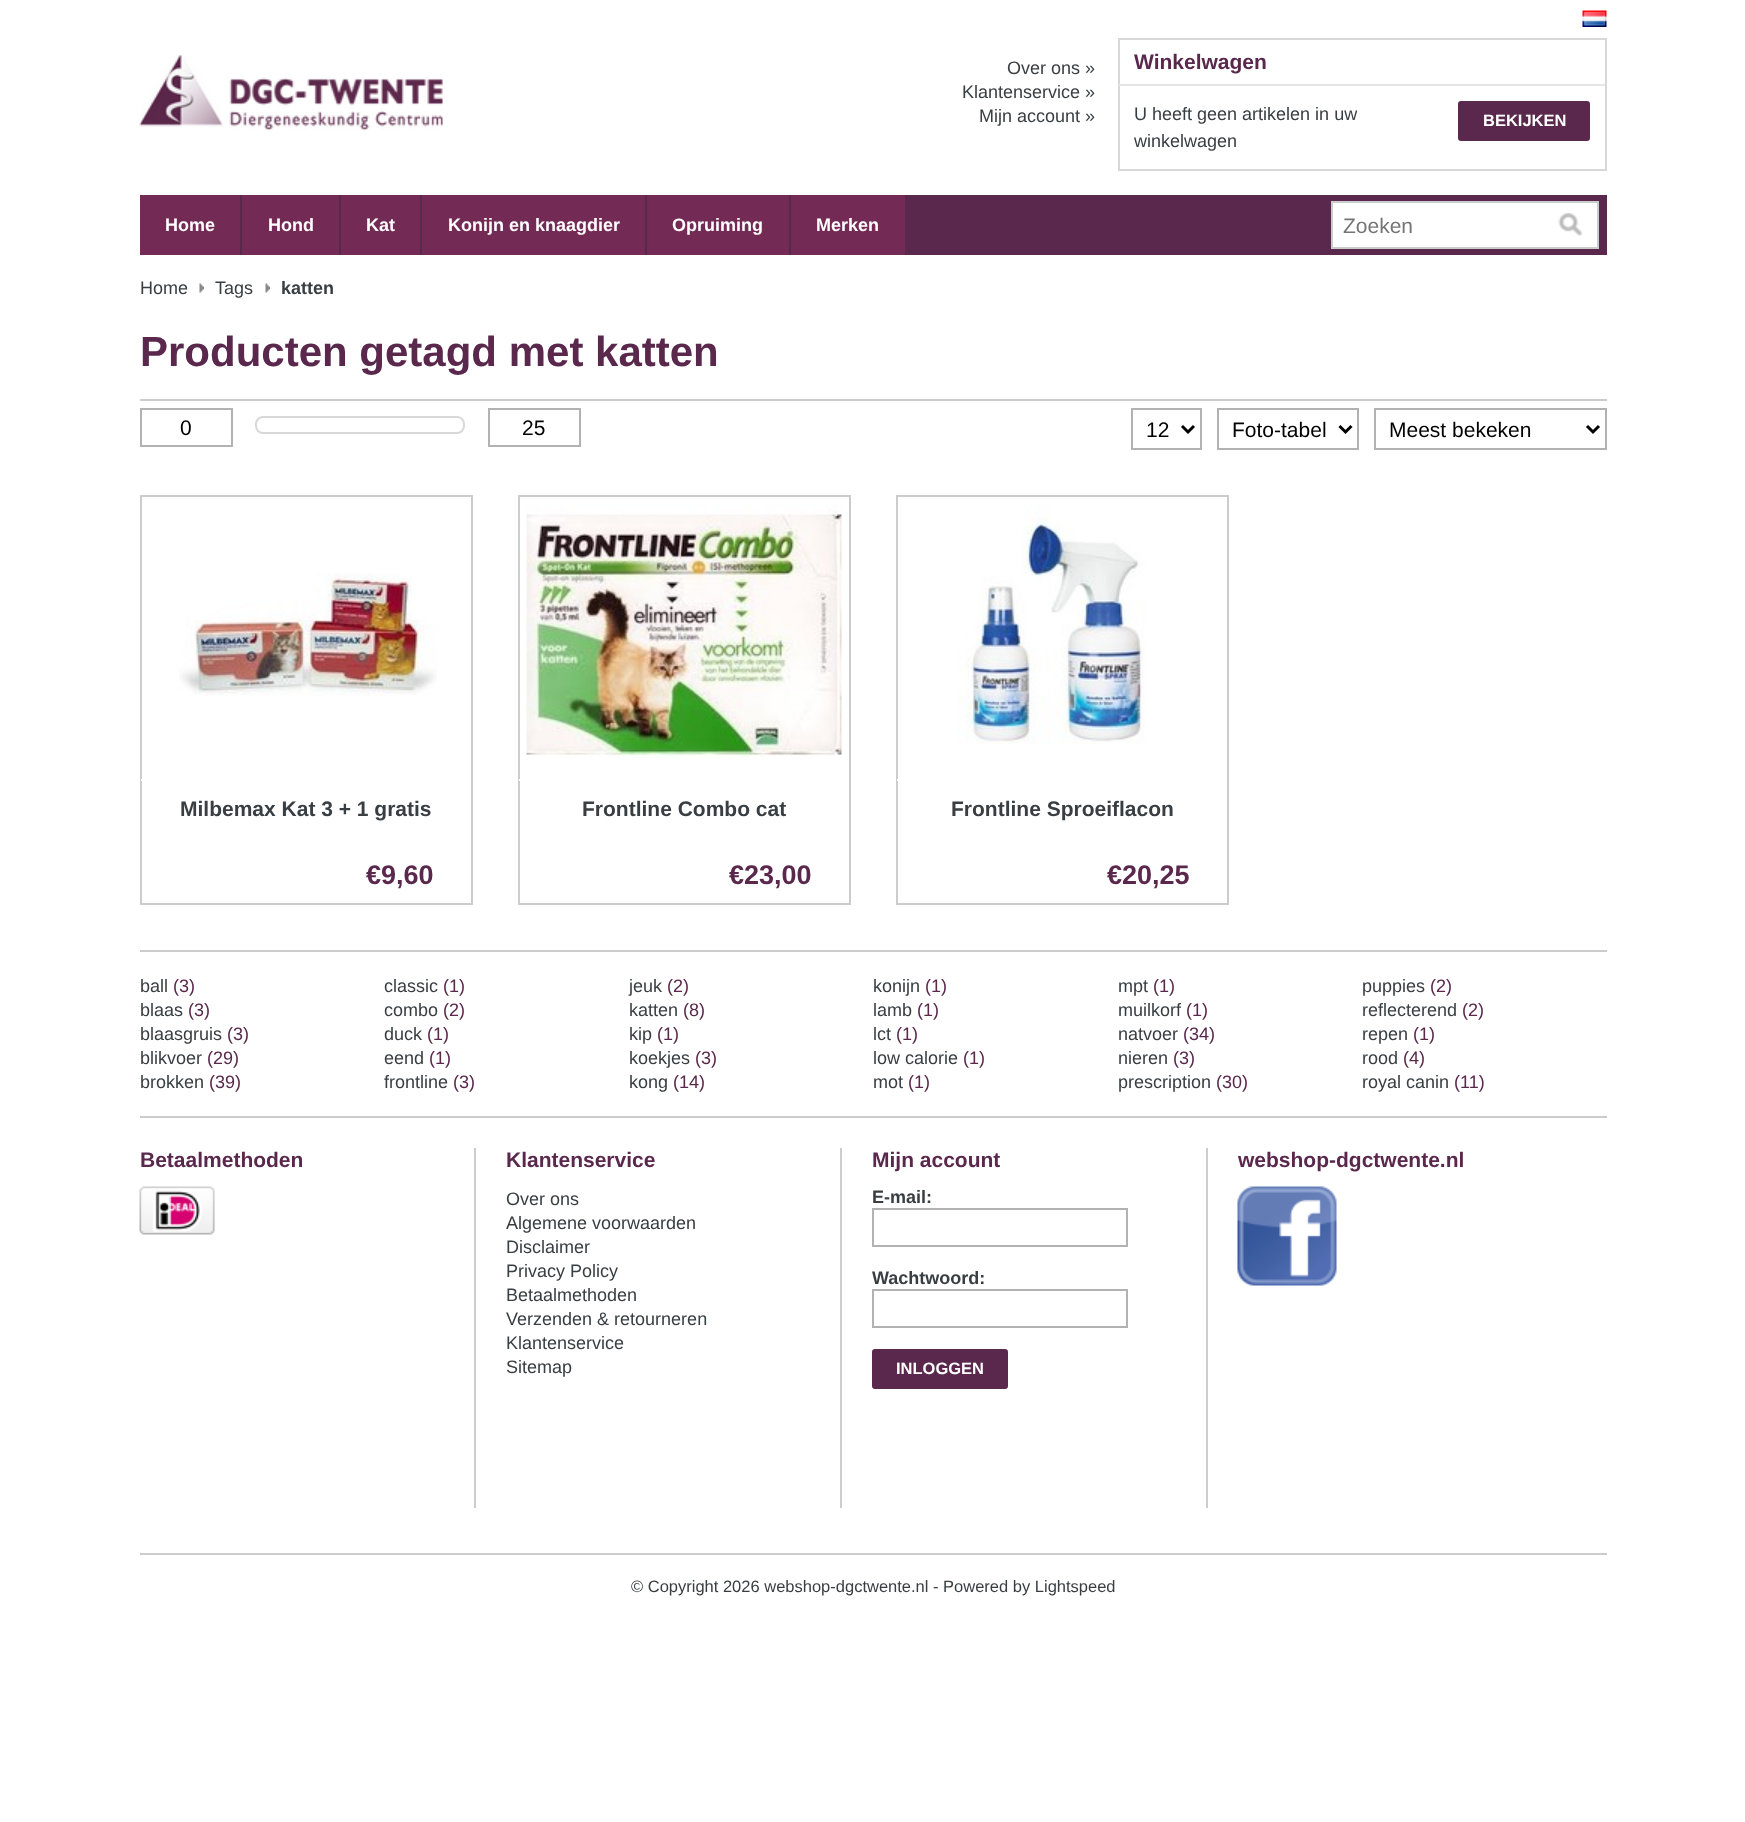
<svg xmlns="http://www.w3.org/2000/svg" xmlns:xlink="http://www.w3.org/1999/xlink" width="1745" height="1822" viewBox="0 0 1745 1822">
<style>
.cls-1{font:18px Liberation Sans;fill:#383e42}
.cls-2{font:bold 21px Liberation Sans;fill:#5a284c}
.cls-3{font:bold 16.5px Liberation Sans;fill:#ffffff}
.cls-4{font:bold 18px Liberation Sans;fill:#ffffff}
.cls-5{font:21px Liberation Sans;fill:#757575}
.cls-6{font:bold 18px Liberation Sans;fill:#383e42}
.cls-7{font:bold 42px Liberation Sans;fill:#5a284c}
.cls-8{font:21px Liberation Sans;fill:#000000}
.cls-9{font:bold 21px Liberation Sans;fill:#383e42}
.cls-10{font:bold 27px Liberation Sans;fill:#5a284c}
.cls-11{font:18px Liberation Sans;fill:#5a284c}
.cls-12{font:16.5px Liberation Sans;fill:#383e42}
</style>
<rect width="100%" height="100%" fill="#ffffff"/>
<image xlink:href="image0.png" x="139" y="55" width="304" height="76"/>
<image xlink:href="image1.png" x="1582" y="10" width="25" height="17"/>
<rect fill="none" stroke="#d8d8d8" stroke-width="2" x="1119" y="39" width="487" height="131"/>
<rect fill="#e6e6e6" x="1119" y="84" width="486" height="2"/>
<rect fill="#5a284c" stroke="#5a284c" stroke-width="2" x="1459" y="102" width="130" height="38" rx="2"/>
<rect fill="#5a284c" x="905" y="195" width="702" height="60"/>
<rect fill="#732b55" x="140" y="195" width="100" height="60"/>
<rect fill="#732b55" x="242" y="195" width="97" height="60"/>
<rect fill="#5a284c" x="240" y="195" width="2" height="60"/>
<rect fill="#732b55" x="341" y="195" width="79" height="60"/>
<rect fill="#5a284c" x="339" y="195" width="2" height="60"/>
<rect fill="#732b55" x="422" y="195" width="223" height="60"/>
<rect fill="#5a284c" x="420" y="195" width="2" height="60"/>
<rect fill="#732b55" x="647" y="195" width="142" height="60"/>
<rect fill="#5a284c" x="645" y="195" width="2" height="60"/>
<rect fill="#732b55" x="791" y="195" width="114" height="60"/>
<rect fill="#5a284c" x="789" y="195" width="2" height="60"/>
<rect fill="#ffffff" stroke="#cccccc" stroke-width="2" x="1332" y="202" width="266" height="46"/>
<image xlink:href="image2.png" x="1558" y="213" width="25" height="23"/>
<image xlink:href="image3.png" x="199" y="283" width="5" height="10"/>
<image xlink:href="image3.png" x="265" y="283" width="5" height="10"/>
<rect fill="#cccccc" x="140" y="399" width="1467" height="2"/>
<rect fill="none" stroke="#b2b2b2" stroke-width="2" x="141" y="409" width="91" height="37"/>
<rect fill="none" stroke="#d8d8d8" stroke-width="2" x="256" y="417" width="208" height="16" rx="7"/>
<rect fill="none" stroke="#b2b2b2" stroke-width="2" x="489" y="409" width="91" height="37"/>
<rect fill="none" stroke="#b2b2b2" stroke-width="2" x="1132" y="409" width="69" height="40"/>
<path fill="none" stroke="#000000" stroke-width="3" d="M1182 426L1188 432L1194 426"/>
<rect fill="none" stroke="#b2b2b2" stroke-width="2" x="1218" y="409" width="140" height="40"/>
<path fill="none" stroke="#000000" stroke-width="3" d="M1339.5 426L1345.5 432L1351.5 426"/>
<rect fill="none" stroke="#b2b2b2" stroke-width="2" x="1375" y="409" width="231" height="40"/>
<path fill="none" stroke="#000000" stroke-width="3" d="M1587 426L1593 432L1599 426"/>
<rect fill="none" stroke="#cccccc" stroke-width="2" x="141" y="496" width="331" height="408"/>
<image xlink:href="image4.png" x="179" y="573" width="258" height="123"/>
<rect fill="#ffffff" x="141" y="779" width="1" height="2"/>
<rect fill="none" stroke="#cccccc" stroke-width="2" x="519" y="496" width="331" height="408"/>
<image xlink:href="image5.png" x="526" y="504" width="316" height="254"/>
<rect fill="#ffffff" x="519" y="779" width="1" height="2"/>
<rect fill="none" stroke="#cccccc" stroke-width="2" x="897" y="496" width="331" height="408"/>
<image xlink:href="image6.png" x="957" y="504" width="188" height="240"/>
<rect fill="#ffffff" x="897" y="779" width="1" height="2"/>
<rect fill="#cccccc" x="140" y="950" width="1467" height="2"/>
<rect fill="#cccccc" x="140" y="1116" width="1467" height="2"/>
<image xlink:href="image7.png" x="139" y="1186" width="76" height="49"/>
<rect fill="#cccccc" x="474" y="1148" width="2" height="360"/>
<rect fill="#cccccc" x="840" y="1148" width="2" height="360"/>
<rect fill="none" stroke="#b2b2b2" stroke-width="2" x="873" y="1209" width="254" height="37"/>
<rect fill="none" stroke="#b2b2b2" stroke-width="2" x="873" y="1290" width="254" height="37"/>
<rect fill="#5a284c" stroke="#5a284c" stroke-width="2" x="873" y="1350" width="134" height="38" rx="2"/>
<rect fill="#cccccc" x="1206" y="1148" width="2" height="360"/>
<image xlink:href="image8.png" x="1237" y="1186" width="100" height="100"/>
<rect fill="#cccccc" x="140" y="1553" width="1467" height="2"/>
<text class="cls-1" x="1007" y="74">Over ons »</text>
<text class="cls-1" x="962" y="98">Klantenservice »</text>
<text class="cls-1" x="979" y="122">Mijn account »</text>
<text class="cls-2" x="1134" y="69">Winkelwagen</text>
<text class="cls-1" x="1134" y="120">U heeft geen artikelen in uw</text>
<text class="cls-3" x="1483" y="126">BEKIJKEN</text>
<text class="cls-1" x="1134" y="147">winkelwagen</text>
<text class="cls-4" x="165" y="231">Home</text>
<text class="cls-4" x="268" y="231">Hond</text>
<text class="cls-4" x="366" y="231">Kat</text>
<text class="cls-4" x="448" y="231">Konijn en knaagdier</text>
<text class="cls-4" x="672" y="231">Opruiming</text>
<text class="cls-4" x="816" y="231">Merken</text>
<text class="cls-5" x="1343" y="233">Zoeken</text>
<text class="cls-1" x="140" y="294">Home</text>
<text class="cls-1" x="215" y="294">Tags</text>
<text class="cls-6" x="281" y="294">katten</text>
<text class="cls-7" x="140" y="366">Producten getagd met katten</text>
<text class="cls-8" x="180" y="435">0</text>
<text class="cls-8" x="522" y="435">25</text>
<text class="cls-8" x="1146" y="437">12</text>
<text class="cls-8" x="1232" y="437">Foto-tabel</text>
<text class="cls-8" x="1389" y="437">Meest bekeken</text>
<text class="cls-9" x="180" y="816">Milbemax Kat 3 + 1 gratis</text>
<text class="cls-10" x="366" y="884">€9,60</text>
<text class="cls-9" x="582" y="816">Frontline Combo cat</text>
<text class="cls-10" x="729" y="884">€23,00</text>
<text class="cls-9" x="951" y="816">Frontline Sproeiflacon</text>
<text class="cls-10" x="1107" y="884">€20,25</text>
<text class="cls-1" x="140" y="992">ball</text>
<text class="cls-11" x="173" y="992">(3)</text>
<text class="cls-1" x="140" y="1016">blaas</text>
<text class="cls-11" x="188" y="1016">(3)</text>
<text class="cls-1" x="140" y="1040">blaasgruis</text>
<text class="cls-11" x="227" y="1040">(3)</text>
<text class="cls-1" x="140" y="1064">blikvoer</text>
<text class="cls-11" x="207" y="1064">(29)</text>
<text class="cls-1" x="140" y="1088">brokken</text>
<text class="cls-11" x="209" y="1088">(39)</text>
<text class="cls-1" x="384" y="992">classic</text>
<text class="cls-11" x="443" y="992">(1)</text>
<text class="cls-1" x="384" y="1016">combo</text>
<text class="cls-11" x="443" y="1016">(2)</text>
<text class="cls-1" x="384" y="1040">duck</text>
<text class="cls-11" x="427" y="1040">(1)</text>
<text class="cls-1" x="384" y="1064">eend</text>
<text class="cls-11" x="429" y="1064">(1)</text>
<text class="cls-1" x="384" y="1088">frontline</text>
<text class="cls-11" x="453" y="1088">(3)</text>
<text class="cls-1" x="629" y="992">jeuk</text>
<text class="cls-11" x="667" y="992">(2)</text>
<text class="cls-1" x="629" y="1016">katten</text>
<text class="cls-11" x="683" y="1016">(8)</text>
<text class="cls-1" x="629" y="1040">kip</text>
<text class="cls-11" x="657" y="1040">(1)</text>
<text class="cls-1" x="629" y="1064">koekjes</text>
<text class="cls-11" x="695" y="1064">(3)</text>
<text class="cls-1" x="629" y="1088">kong</text>
<text class="cls-11" x="673" y="1088">(14)</text>
<text class="cls-1" x="873" y="992">konijn</text>
<text class="cls-11" x="925" y="992">(1)</text>
<text class="cls-1" x="873" y="1016">lamb</text>
<text class="cls-11" x="917" y="1016">(1)</text>
<text class="cls-1" x="873" y="1040">lct</text>
<text class="cls-11" x="896" y="1040">(1)</text>
<text class="cls-1" x="873" y="1064">low calorie</text>
<text class="cls-11" x="963" y="1064">(1)</text>
<text class="cls-1" x="873" y="1088">mot</text>
<text class="cls-11" x="908" y="1088">(1)</text>
<text class="cls-1" x="1118" y="992">mpt</text>
<text class="cls-11" x="1153" y="992">(1)</text>
<text class="cls-1" x="1118" y="1016">muilkorf</text>
<text class="cls-11" x="1186" y="1016">(1)</text>
<text class="cls-1" x="1118" y="1040">natvoer</text>
<text class="cls-11" x="1183" y="1040">(34)</text>
<text class="cls-1" x="1118" y="1064">nieren</text>
<text class="cls-11" x="1173" y="1064">(3)</text>
<text class="cls-1" x="1118" y="1088">prescription</text>
<text class="cls-11" x="1216" y="1088">(30)</text>
<text class="cls-1" x="1362" y="992">puppies</text>
<text class="cls-11" x="1430" y="992">(2)</text>
<text class="cls-1" x="1362" y="1016">reflecterend</text>
<text class="cls-11" x="1462" y="1016">(2)</text>
<text class="cls-1" x="1362" y="1040">repen</text>
<text class="cls-11" x="1413" y="1040">(1)</text>
<text class="cls-1" x="1362" y="1064">rood</text>
<text class="cls-11" x="1403" y="1064">(4)</text>
<text class="cls-1" x="1362" y="1088">royal canin</text>
<text class="cls-11" x="1454" y="1088">(11)</text>
<text class="cls-2" x="140" y="1167">Betaalmethoden</text>
<text class="cls-2" x="506" y="1167">Klantenservice</text>
<text class="cls-1"><tspan x="506" y="1205">Over ons</tspan><tspan x="506" y="1229">Algemene voorwaarden</tspan><tspan x="506" y="1253">Disclaimer</tspan><tspan x="506" y="1277">Privacy Policy</tspan><tspan x="506" y="1301">Betaalmethoden</tspan><tspan x="506" y="1325">Verzenden &amp; retourneren</tspan><tspan x="506" y="1349">Klantenservice</tspan><tspan x="506" y="1373">Sitemap</tspan></text>
<text class="cls-2" x="872" y="1167">Mijn account</text>
<text class="cls-6" x="872" y="1203">E-mail:</text>
<text class="cls-6" x="872" y="1284">Wachtwoord:</text>
<text class="cls-3" x="896" y="1374">INLOGGEN</text>
<text class="cls-2" x="1238" y="1167">webshop-dgctwente.nl</text>
<text class="cls-12" x="631" y="1592">© Copyright 2026 webshop-dgctwente.nl - Powered by Lightspeed</text>
</svg>
